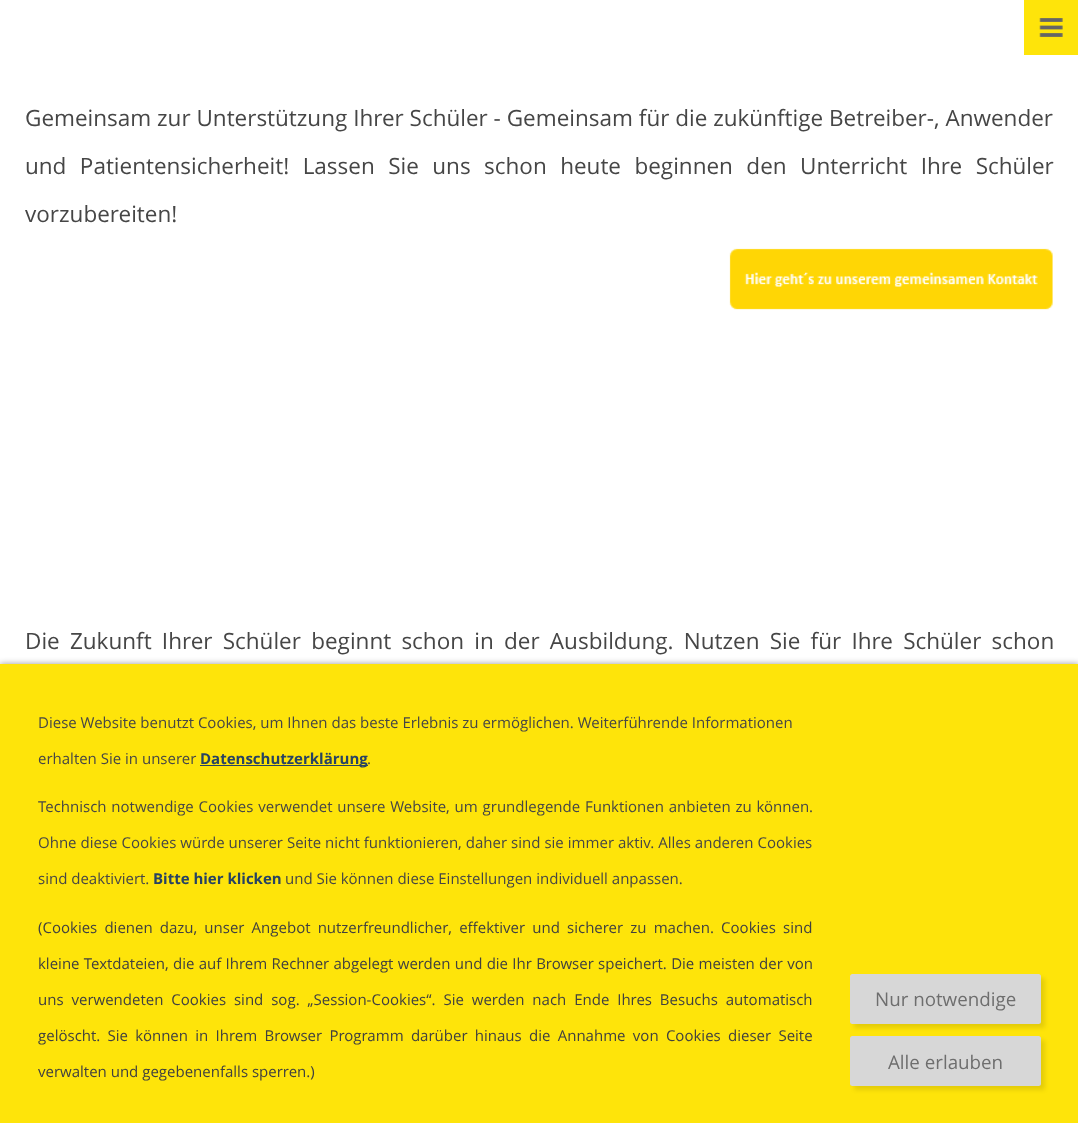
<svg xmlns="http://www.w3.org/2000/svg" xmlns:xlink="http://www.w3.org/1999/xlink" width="1078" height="1123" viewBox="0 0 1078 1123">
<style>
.cls-1{font:22.5px Open Sans;fill:#464646}
.cls-2{font:15px Open Sans;fill:#464646}
.cls-3{font:bold 15px Open Sans;fill:#274263}
.cls-4{font:15px Open Sans;fill:#404040}
.cls-5{font:18.75px Open Sans;fill:#6e6e6e}
</style>
<rect width="100%" height="100%" fill="#ffffff"/>
<rect fill="#fee40a" x="1024" y="0" width="54" height="55"/>
<image xlink:href="image0.png" x="1039" y="18" width="24" height="19"/>
<image xlink:href="image1.png" x="729" y="248" width="324" height="62"/>
<rect fill="#000000" fill-opacity="0.4" filter="blur(3px)" x="0" y="664" width="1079" height="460"/>
<rect fill="#fee40a" x="0" y="664" width="1078" height="459"/>
<rect fill="#274263" x="200" y="765" width="168" height="1"/>
<rect fill="#000000" fill-opacity="0.1" filter="blur(2px)" x="854" y="978" width="191" height="50" rx="2.5"/>
<rect fill="#d7d7d7" x="850" y="974" width="191" height="50" rx="2.5"/>
<rect fill="#000000" fill-opacity="0.1" filter="blur(2px)" x="854" y="1040" width="191" height="50" rx="2.5"/>
<rect fill="#d7d7d7" x="850" y="1036" width="191" height="50" rx="2.5"/>
<text class="cls-1" x="25" y="126">Gemeinsam zur Unterstützung Ihrer Schüler - Gemeinsam für die zukünftige Betreiber-, Anwender</text>
<text class="cls-1" x="25" y="174" word-spacing="7.6">und Patientensicherheit! Lassen Sie uns schon heute beginnen den Unterricht Ihre Schüler</text>
<text class="cls-1" x="25" y="222">vorzubereiten!</text>
<text class="cls-1" x="25" y="649" word-spacing="4.4">Die Zukunft Ihrer Schüler beginnt schon in der Ausbildung. Nutzen Sie für Ihre Schüler schon</text>
<text class="cls-2" x="38" y="728">Diese Website benutzt Cookies, um Ihnen das beste Erlebnis zu ermöglichen. Weiterführende Informationen</text>
<text class="cls-2" x="38" y="764">erhalten Sie in unserer</text>
<text class="cls-3" x="200" y="764">Datenschutzerklärung</text>
<text class="cls-2" x="367" y="764">.</text>
<text class="cls-2" x="38" y="812" word-spacing="0.9">Technisch notwendige Cookies verwendet unsere Website, um grundlegende Funktionen anbieten zu können.</text>
<text class="cls-2" x="38" y="848" word-spacing="0.1">Ohne diese Cookies würde unserer Seite nicht funktionieren, daher sind sie immer aktiv. Alles anderen Cookies</text>
<text class="cls-2" x="38" y="884">sind deaktiviert.</text>
<text class="cls-3" x="153" y="884">Bitte hier klicken</text>
<text class="cls-2" x="285" y="884">und Sie können diese Einstellungen individuell anpassen.</text>
<text class="cls-4" x="38" y="933" word-spacing="3.25">(Cookies dienen dazu, unser Angebot nutzerfreundlicher, effektiver und sicherer zu machen. Cookies sind</text>
<text class="cls-4" x="38" y="969" word-spacing="0.4">kleine Textdateien, die auf Ihrem Rechner abgelegt werden und die Ihr Browser speichert. Die meisten der von</text>
<text class="cls-4" x="38" y="1005" word-spacing="4">uns verwendeten Cookies sind sog. „Session-Cookies“. Sie werden nach Ende Ihres Besuchs automatisch</text>
<text class="cls-4" x="38" y="1041" word-spacing="3.4">gelöscht. Sie können in Ihrem Browser Programm darüber hinaus die Annahme von Cookies dieser Seite</text>
<text class="cls-4" x="38" y="1077">verwalten und gegebenenfalls sperren.)</text>
<text class="cls-5" x="875" y="1006">Nur notwendige</text>
<text class="cls-5" x="888" y="1069">Alle erlauben</text>
</svg>
